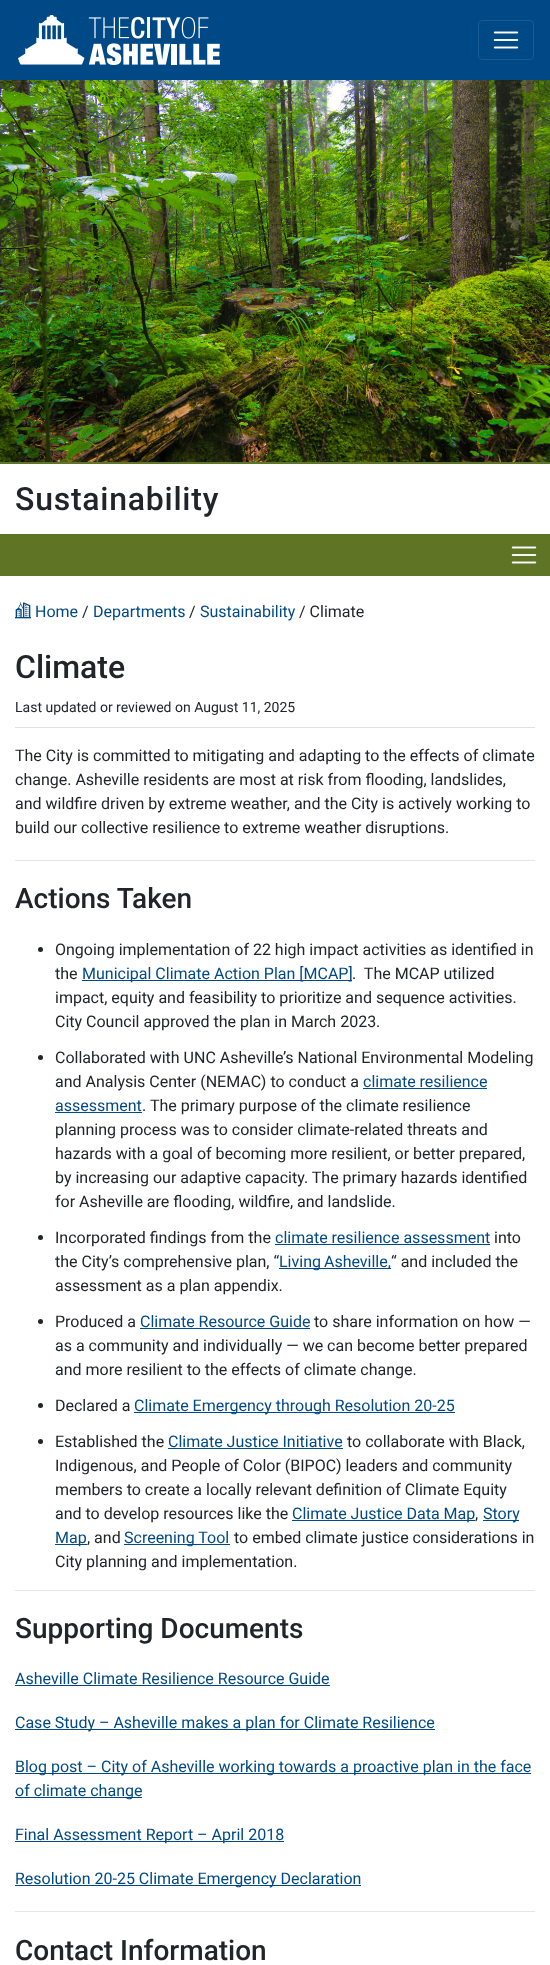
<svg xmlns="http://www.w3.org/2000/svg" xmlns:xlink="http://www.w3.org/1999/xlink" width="550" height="1965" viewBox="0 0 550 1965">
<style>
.cls-1{font:500 32px Roboto;letter-spacing:0.75px;fill:#212529}
.cls-2{font:16px Roboto;fill:#004987}
.cls-3{font:16px Roboto;fill:#212529}
.cls-4{font:500 32px Roboto;fill:#212529}
.cls-5{font:14px Roboto;fill:#212529}
.cls-6{font:500 28px Roboto;fill:#212529}
</style>
<rect width="100%" height="100%" fill="#ffffff"/>
<rect fill="#004987" x="0" y="0" width="550" height="80"/>
<image xlink:href="image0.png" x="18" y="15" width="202" height="50"/>
<rect fill="none" stroke="#1a5b93" x="478.5" y="20.5" width="55" height="39" rx="3.5"/>
<image xlink:href="image1.png" x="493" y="31" width="26" height="18"/>
<rect fill="#607425" x="0" y="462" width="550" height="2"/>
<image xlink:href="image2.png" x="0" y="80" width="550" height="382"/>
<rect fill="#607425" x="0" y="534" width="550" height="42"/>
<image xlink:href="image3.png" x="511" y="546" width="26" height="18"/>
<image xlink:href="image4.png" x="15" y="602" width="16" height="17"/>
<rect fill="#dee2e6" x="15" y="727" width="520" height="1"/>
<rect fill="#e6e6e6" x="15" y="860" width="520" height="1"/>
<circle fill="#212529" cx="40.5" cy="949.5" r="2.5"/>
<rect fill="#004987" x="82" y="980" width="270" height="1"/>
<circle fill="#212529" cx="40.5" cy="1057.5" r="2.5"/>
<rect fill="#004987" x="363" y="1088" width="124" height="1"/>
<rect fill="#004987" x="55" y="1112" width="87" height="1"/>
<circle fill="#212529" cx="40.5" cy="1237.5" r="2.5"/>
<rect fill="#004987" x="275" y="1244" width="215" height="1"/>
<rect fill="#004987" x="279" y="1268" width="112" height="1"/>
<circle fill="#212529" cx="40.5" cy="1321.5" r="2.5"/>
<rect fill="#004987" x="140" y="1328" width="170" height="1"/>
<circle fill="#212529" cx="40.5" cy="1405.5" r="2.5"/>
<rect fill="#004987" x="134" y="1412" width="321" height="1"/>
<circle fill="#212529" cx="40.5" cy="1441.5" r="2.5"/>
<rect fill="#004987" x="168" y="1448" width="175" height="1"/>
<rect fill="#004987" x="292" y="1520" width="183" height="1"/>
<rect fill="#004987" x="483" y="1520" width="36" height="1"/>
<rect fill="#004987" x="55" y="1544" width="32" height="1"/>
<rect fill="#004987" x="124" y="1544" width="106" height="1"/>
<rect fill="#e6e6e6" x="15" y="1590" width="520" height="1"/>
<rect fill="#004987" x="15" y="1685" width="315" height="1"/>
<rect fill="#004987" x="15" y="1729" width="420" height="1"/>
<rect fill="#004987" x="15" y="1773" width="516" height="1"/>
<rect fill="#004987" x="15" y="1797" width="127" height="1"/>
<rect fill="#004987" x="15" y="1841" width="269" height="1"/>
<rect fill="#004987" x="15" y="1885" width="346" height="1"/>
<rect fill="#e6e6e6" x="15" y="1911" width="520" height="1"/>
<text class="cls-1" x="15" y="510">Sustainability</text>
<text class="cls-2" x="35" y="617">Home</text>
<text class="cls-3" x="82" y="617">/</text>
<text class="cls-2" x="93" y="617">Departments</text>
<text class="cls-3" x="189" y="617">/</text>
<text class="cls-2" x="200" y="617">Sustainability</text>
<text class="cls-3" x="299" y="617">/ Climate</text>
<text class="cls-4" x="15" y="678">Climate</text>
<text class="cls-5" x="15" y="712">Last updated or reviewed on August 11, 2025</text>
<text class="cls-3"><tspan x="15" y="761">The City is committed to mitigating and adapting to the effects of climate</tspan><tspan x="15" y="785">change. Asheville residents are most at risk from flooding, landslides,</tspan><tspan x="15" y="809">and wildfire driven by extreme weather, and the City is actively working to</tspan><tspan x="15" y="833">build our collective resilience to extreme weather disruptions.</tspan></text>
<text class="cls-6" x="15" y="908">Actions Taken</text>
<text class="cls-3"><tspan x="55" y="955">Ongoing implementation of 22 high impact activities as identified in</tspan><tspan x="55" y="979">the</tspan></text>
<text class="cls-2" x="82" y="979">Municipal Climate Action Plan [MCAP]</text>
<text class="cls-3" xml:space="preserve" x="352" y="979">.  The MCAP utilized</text>
<text class="cls-3"><tspan x="55" y="1003">impact, equity and feasibility to prioritize and sequence activities.</tspan><tspan x="55" y="1027">City Council approved the plan in March 2023.</tspan></text>
<text class="cls-3"><tspan x="55" y="1063">Collaborated with UNC Asheville’s National Environmental Modeling</tspan><tspan x="55" y="1087">and Analysis Center (NEMAC) to conduct a</tspan></text>
<text class="cls-2" x="363" y="1087">climate resilience</text>
<text class="cls-2" x="55" y="1111">assessment</text>
<text class="cls-3" x="142" y="1111">. The primary purpose of the climate resilience</text>
<text class="cls-3"><tspan x="55" y="1135">planning process was to consider climate-related threats and</tspan><tspan x="55" y="1159">hazards with a goal of becoming more resilient, or better prepared,</tspan><tspan x="55" y="1183">by increasing our adaptive capacity. The primary hazards identified</tspan><tspan x="55" y="1207">for Asheville are flooding, wildfire, and landslide.</tspan></text>
<text class="cls-3" x="55" y="1243">Incorporated findings from the</text>
<text class="cls-2" x="275" y="1243">climate resilience assessment</text>
<text class="cls-3" x="494" y="1243">into</text>
<text class="cls-3" x="55" y="1267">the City’s comprehensive plan, “</text>
<text class="cls-2" x="279" y="1267" word-spacing="-1">Living Asheville,</text>
<text class="cls-3" x="391" y="1267">“ and included the</text>
<text class="cls-3" x="55" y="1291">assessment as a plan appendix.</text>
<text class="cls-3" x="55" y="1327">Produced a</text>
<text class="cls-2" x="140" y="1327">Climate Resource Guide</text>
<text class="cls-3" x="314" y="1327">to share information on how —</text>
<text class="cls-3"><tspan x="55" y="1351">as a community and individually — we can become better prepared</tspan><tspan x="55" y="1375">and more resilient to the effects of climate change.</tspan></text>
<text class="cls-3" x="55" y="1411">Declared a</text>
<text class="cls-2" x="134" y="1411">Climate Emergency through Resolution 20-25</text>
<text class="cls-3" x="55" y="1447">Established the</text>
<text class="cls-2" x="168" y="1447">Climate Justice Initiative</text>
<text class="cls-3" x="347" y="1447">to collaborate with Black,</text>
<text class="cls-3"><tspan x="55" y="1471">Indigenous, and People of Color (BIPOC) leaders and community</tspan><tspan x="55" y="1495">members to create a locally relevant definition of Climate Equity</tspan><tspan x="55" y="1519">and to develop resources like the</tspan></text>
<text class="cls-2" x="292" y="1519">Climate Justice Data Map</text>
<text class="cls-3" x="475" y="1519">,</text>
<text class="cls-2" x="483" y="1519">Story</text>
<text class="cls-2" x="55" y="1543">Map</text>
<text class="cls-3" x="87" y="1543">, and</text>
<text class="cls-2" x="124" y="1543">Screening Tool</text>
<text class="cls-3" x="234" y="1543">to embed climate justice considerations in</text>
<text class="cls-3" x="55" y="1567">City planning and implementation.</text>
<text class="cls-6" x="15" y="1638">Supporting Documents</text>
<text class="cls-2" x="15" y="1684">Asheville Climate Resilience Resource Guide</text>
<text class="cls-2" x="15" y="1728">Case Study – Asheville makes a plan for Climate Resilience</text>
<text class="cls-2"><tspan x="15" y="1772">Blog post – City of Asheville working towards a proactive plan in the face</tspan><tspan x="15" y="1796">of climate change</tspan></text>
<text class="cls-2" x="15" y="1840">Final Assessment Report – April 2018</text>
<text class="cls-2" x="15" y="1884">Resolution 20-25 Climate Emergency Declaration</text>
<text class="cls-6" x="15" y="1960">Contact Information</text>
</svg>
